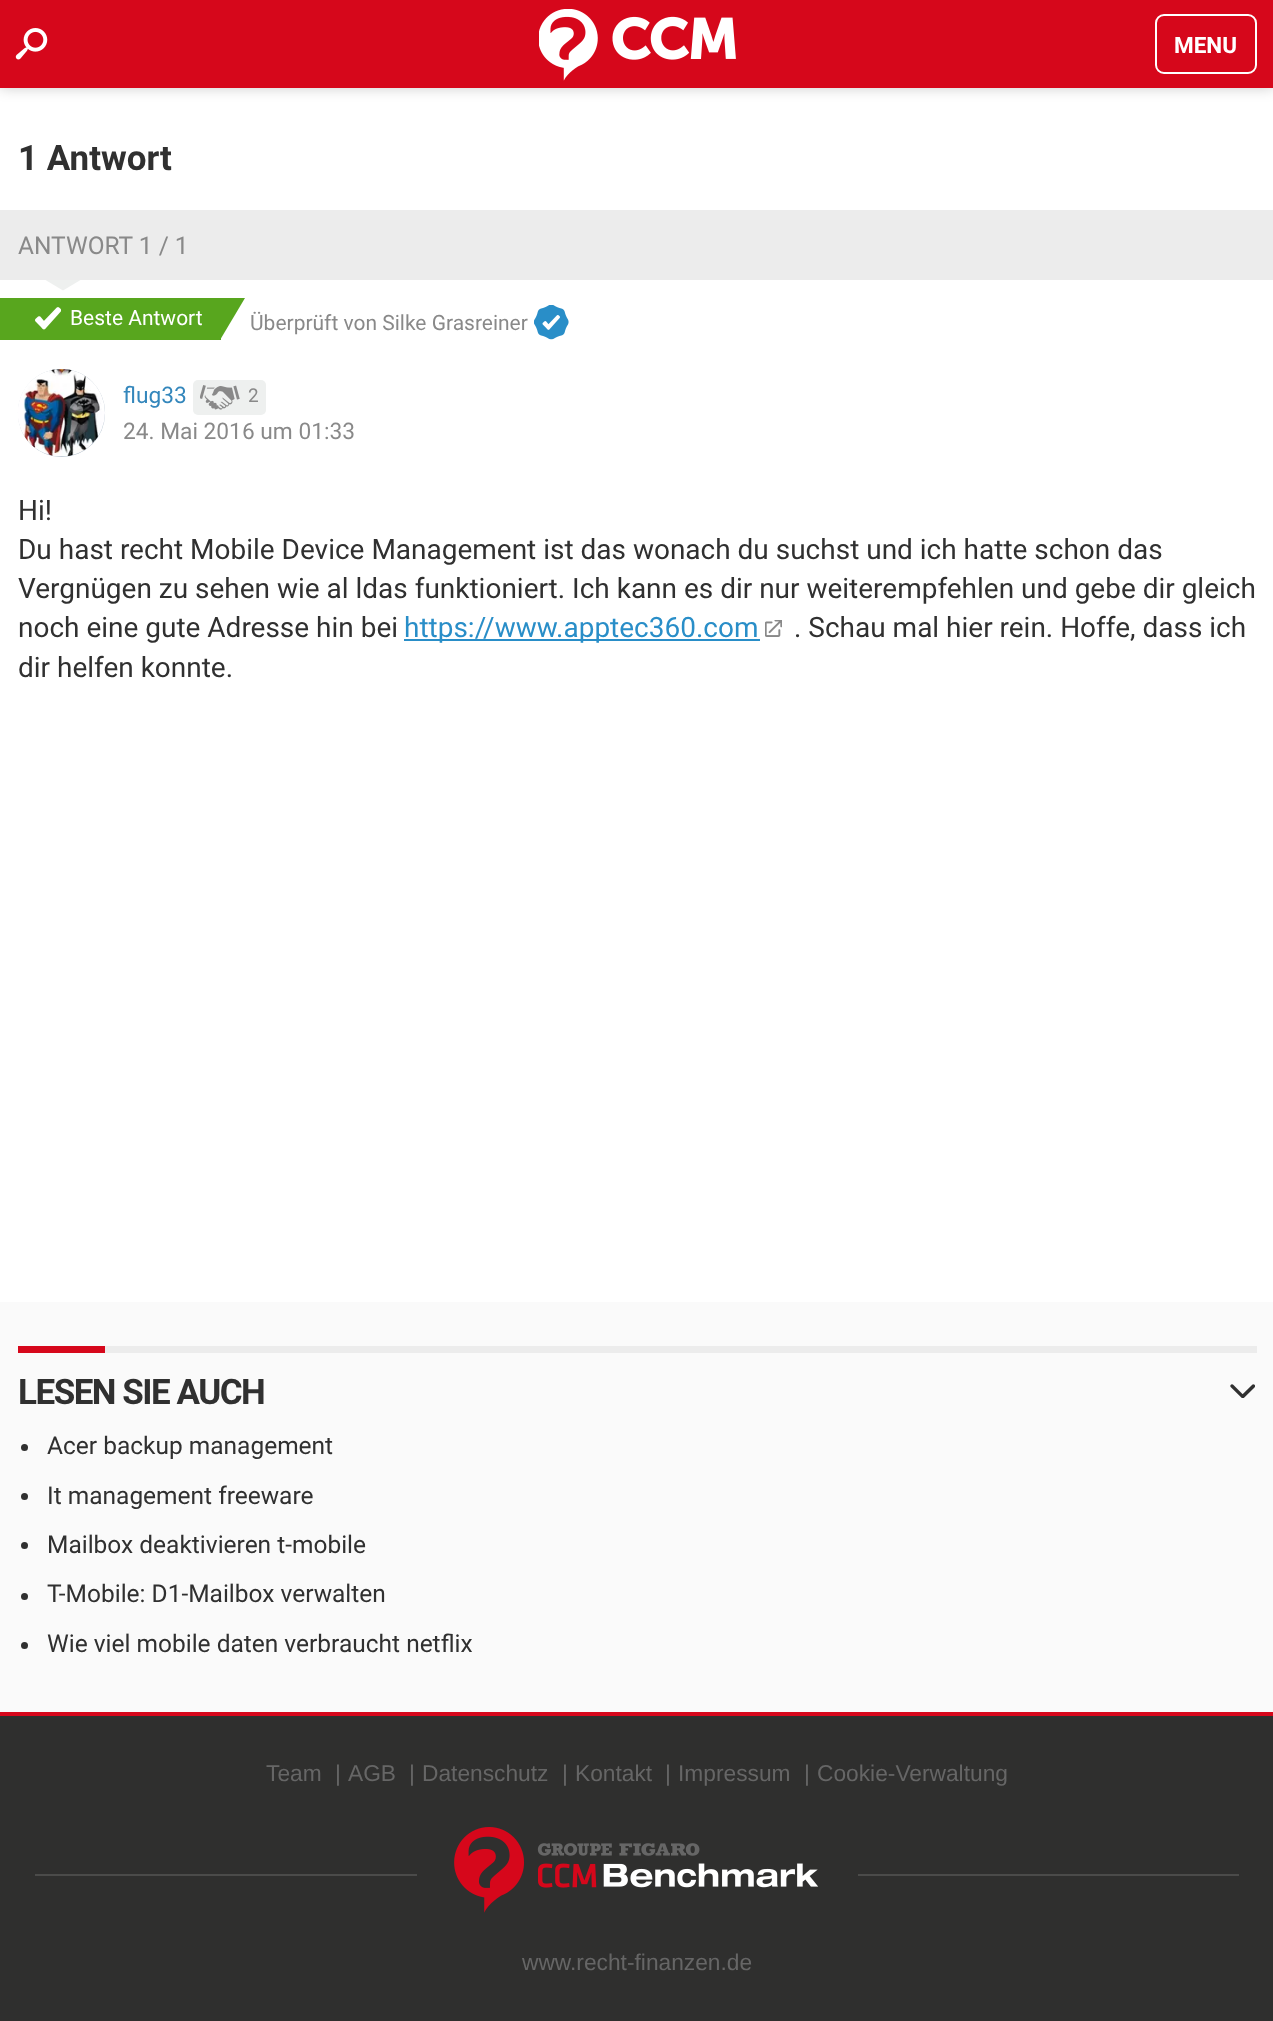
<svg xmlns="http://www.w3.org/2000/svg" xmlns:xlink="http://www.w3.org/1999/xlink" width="1273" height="2021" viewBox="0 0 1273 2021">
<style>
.cls-1{font:bold 22.5px Roboto;fill:#ffffff}
.cls-2{font:bold 35px Roboto;fill:#303030}
.cls-3{font:24.5px Roboto;fill:#898989}
.cls-4{font:21px Roboto;fill:#ffffff}
.cls-5{font:21px Roboto;fill:#898989}
.cls-6{font:22.75px Roboto;fill:#3487bc}
.cls-7{font:19px Roboto;fill:#898989}
.cls-8{font:22.75px Roboto;fill:#898989}
.cls-9{font:28px Roboto;fill:#303030}
.cls-10{font:28px Roboto;fill:#298ec8}
.cls-11{font:bold 35px Roboto;letter-spacing:-1.5px;fill:#303030}
.cls-12{font:24.5px Roboto;fill:#303030}
.cls-13{font:22.75px Liberation Sans;fill:#666666}
</style>
<rect width="100%" height="100%" fill="#2f2f2e"/>
<rect fill="#ffffff" x="0" y="88" width="1273" height="1214"/>
<rect fill="#000000" fill-opacity="0.2" filter="blur(7px)" x="0" y="0" width="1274" height="88"/>
<rect fill="#d6071b" x="0" y="0" width="1273" height="88"/>
<image xlink:href="image0.png" x="15" y="28" width="33" height="32"/>
<image xlink:href="image1.png" x="539" y="9" width="197" height="72"/>
<rect fill="none" stroke="#ffffff" stroke-width="2" x="1156" y="15" width="100" height="58" rx="8"/>
<rect fill="#ececec" x="0" y="210" width="1273" height="70"/>
<path fill="#eef0ef" d="M45.5 280H80.5L63 290.5Z"/>
<rect fill="#58a61e" x="0" y="298" width="221" height="42"/>
<image xlink:href="image2.png" x="35" y="307" width="26" height="23"/>
<path fill="#58a61e" d="M220 298H245L220 340Z"/>
<image xlink:href="image3.png" x="534" y="305" width="35" height="35"/>
<rect fill="#b0becb" x="18" y="369" width="87" height="88" rx="43.5"/>
<image xlink:href="image4.png" x="18" y="369" width="87" height="88"/>
<rect fill="#eef0ef" x="193" y="380" width="73" height="35" rx="5"/>
<image xlink:href="image5.png" x="200" y="385" width="40" height="25"/>
<rect fill="#298ec8" x="404" y="639" width="356" height="2"/>
<image xlink:href="image6.png" x="765" y="620" width="17" height="17"/>
<rect fill="#fafafa" x="0" y="1302" width="1273" height="410"/>
<rect fill="#ececec" x="105" y="1346" width="1152" height="7"/>
<rect fill="#d6071b" x="18" y="1346" width="87" height="7"/>
<image xlink:href="image7.png" x="1230" y="1384" width="25" height="14"/>
<circle fill="#303030" cx="24.5" cy="1447.5" r="3.5"/>
<circle fill="#303030" cx="24.5" cy="1496.5" r="3.5"/>
<circle fill="#303030" cx="24.5" cy="1545.5" r="3.5"/>
<circle fill="#303030" cx="24.5" cy="1596.5" r="3.5"/>
<circle fill="#303030" cx="24.5" cy="1645.5" r="3.5"/>
<rect fill="#d6071b" x="0" y="1712" width="1273" height="4"/>
<rect fill="#4b4b4a" x="35" y="1874" width="1204" height="2"/>
<rect fill="#2f2f2e" x="417" y="1874" width="441" height="2"/>
<image xlink:href="image8.png" x="454" y="1827" width="365" height="86"/>
<text class="cls-1" x="1174" y="53">MENU</text>
<text class="cls-2" x="18" y="170">1 Antwort</text>
<text class="cls-3" x="18" y="254">ANTWORT 1 / 1</text>
<text class="cls-4" x="70" y="325">Beste Antwort</text>
<text class="cls-5" x="250" y="330">Überprüft von Silke Grasreiner</text>
<text class="cls-6" x="123" y="403">flug33</text>
<text class="cls-7" x="248" y="402">2</text>
<text class="cls-8" x="123" y="439">24. Mai 2016 um 01:33</text>
<text class="cls-9"><tspan x="18" y="520">Hi!</tspan><tspan x="18" y="559">Du hast recht Mobile Device Management ist das wonach du suchst und ich hatte schon das</tspan><tspan x="18" y="598">Vergnügen zu sehen wie al ldas funktioniert. Ich kann es dir nur weiterempfehlen und gebe dir gleich</tspan><tspan x="18" y="637">noch eine gute Adresse hin bei</tspan></text>
<text class="cls-10" x="404" y="637">https://www.apptec360.com</text>
<text class="cls-9" x="794" y="637">. Schau mal hier rein. Hoffe, dass ich</text>
<text class="cls-9" x="18" y="677">dir helfen konnte.</text>
<text class="cls-11" x="18" y="1404">LESEN SIE AUCH</text>
<text class="cls-12" x="47" y="1454">Acer backup management</text>
<text class="cls-12" x="47" y="1504">It management freeware</text>
<text class="cls-12" x="47" y="1553">Mailbox deaktivieren t-mobile</text>
<text class="cls-12" x="47" y="1602">T-Mobile: D1-Mailbox verwalten</text>
<text class="cls-12" x="47" y="1652">Wie viel mobile daten verbraucht netflix</text>
<text class="cls-13" x="266" y="1781">Team</text>
<text class="cls-13" x="335" y="1781">|</text>
<text class="cls-13" x="348" y="1781">AGB</text>
<text class="cls-13" x="409" y="1781">|</text>
<text class="cls-13" x="422" y="1781">Datenschutz</text>
<text class="cls-13" x="562" y="1781">|</text>
<text class="cls-13" x="575" y="1781">Kontakt</text>
<text class="cls-13" x="665" y="1781">|</text>
<text class="cls-13" x="678" y="1781">Impressum</text>
<text class="cls-13" x="804" y="1781">|</text>
<text class="cls-13" x="817" y="1781">Cookie-Verwaltung</text>
<text class="cls-13" x="522" y="1970">www.recht-finanzen.de</text>
</svg>
